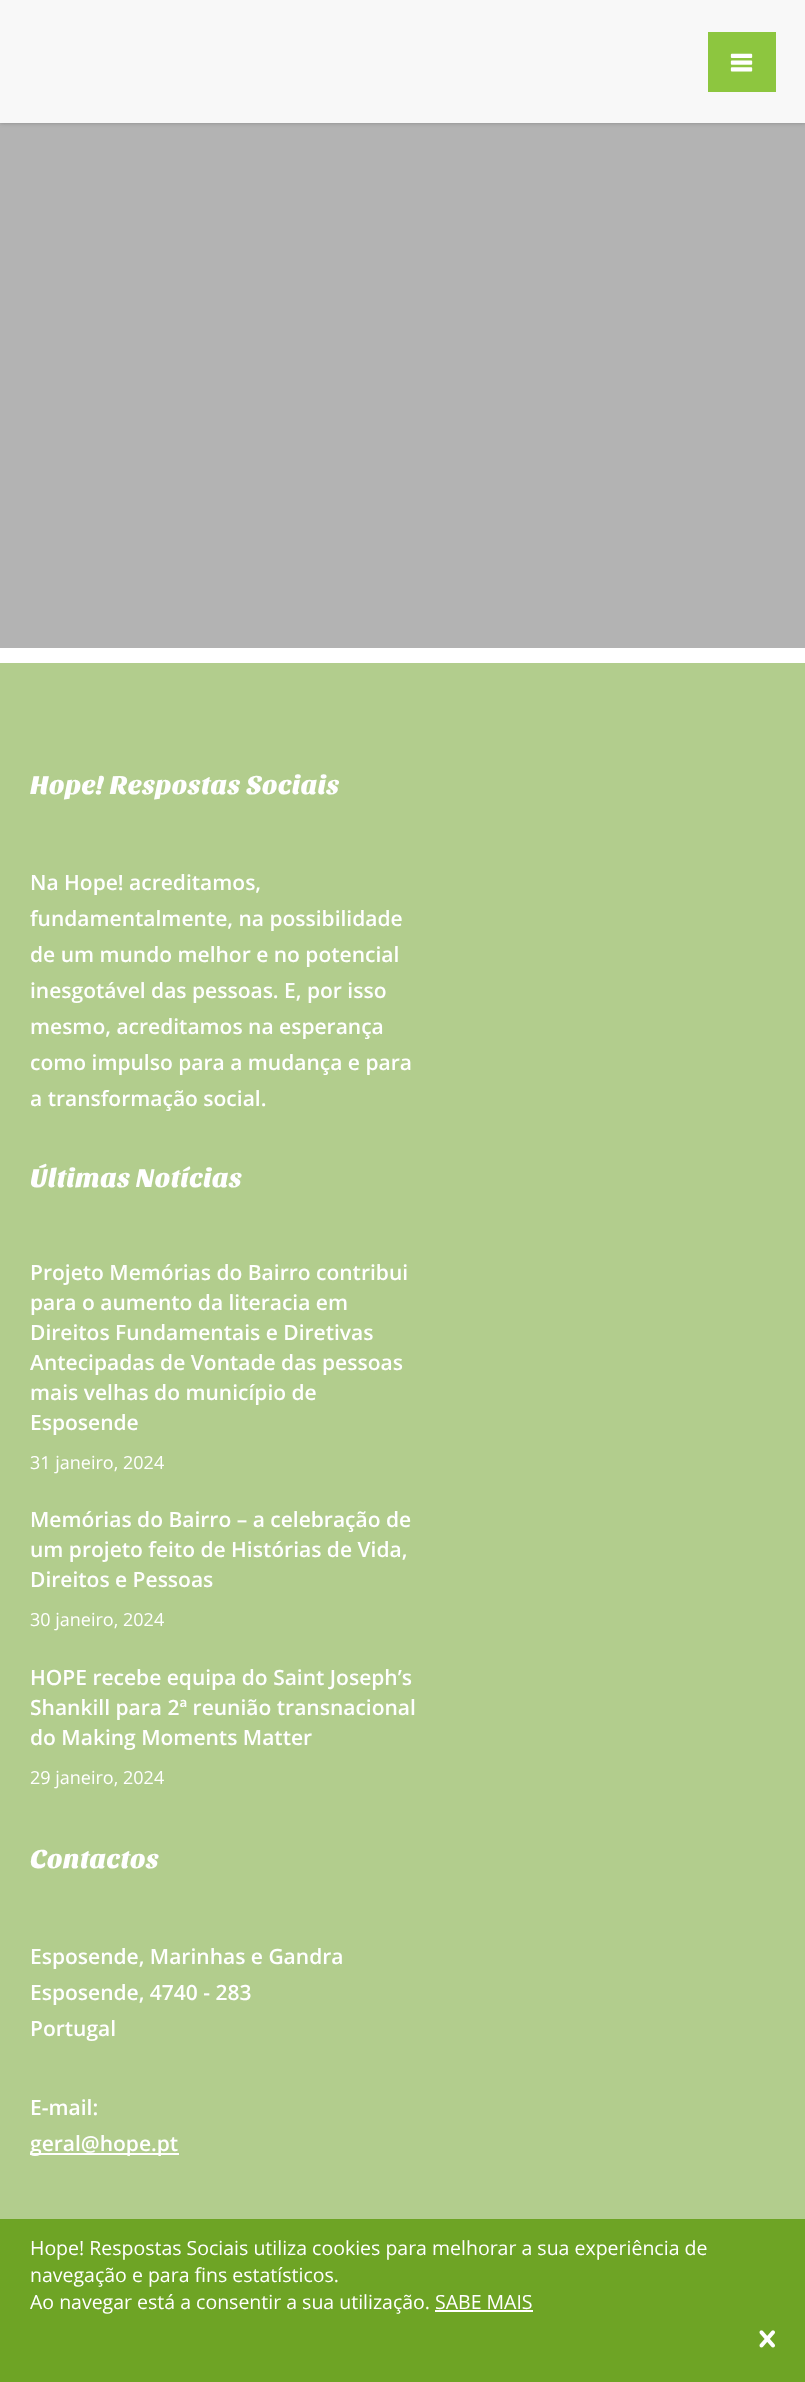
<svg xmlns="http://www.w3.org/2000/svg" xmlns:xlink="http://www.w3.org/1999/xlink" width="805" height="2382" viewBox="0 0 805 2382">
<style>
.cls-1{font:27px Sansita One;fill:#ffffff}
.cls-2{font:600 21px Open Sans;fill:#ffffff}
.cls-3{font:18px Open Sans;fill:#ffffff}
.cls-4{font:19.5px Open Sans;fill:#ffffff}
</style>
<rect width="100%" height="100%" fill="#ffffff"/>
<rect fill="#b3b3b3" x="0" y="123" width="805" height="525"/>
<rect fill="#888888" filter="blur(2px)" x="0" y="0" width="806" height="123"/>
<rect fill="#f8f8f8" x="0" y="0" width="805" height="123"/>
<rect fill="#8dc63f" x="708" y="32" width="68" height="60"/>
<image xlink:href="image0.png" x="730" y="53" width="23" height="19"/>
<rect fill="#b2cd8d" x="0" y="663" width="805" height="1556"/>
<rect fill="#ffffff" x="30" y="2153" width="149" height="2"/>
<rect fill="#6ea425" x="0" y="2219" width="805" height="163"/>
<rect fill="#ffffff" x="435" y="2310" width="98" height="2"/>
<image xlink:href="image1.png" x="759" y="2330" width="16" height="18"/>
<text class="cls-1" x="30" y="794">Hope! Respostas Sociais</text>
<text class="cls-2"><tspan x="30" y="890">Na Hope! acreditamos,</tspan><tspan x="30" y="926">fundamentalmente, na possibilidade</tspan><tspan x="30" y="962">de um mundo melhor e no potencial</tspan><tspan x="30" y="998">inesgotável das pessoas. E, por isso</tspan><tspan x="30" y="1034">mesmo, acreditamos na esperança</tspan><tspan x="30" y="1070">como impulso para a mudança e para</tspan><tspan x="30" y="1106">a transformação social.</tspan></text>
<text class="cls-1" x="30" y="1187">Últimas Notícias</text>
<text class="cls-2"><tspan x="30" y="1280">Projeto Memórias do Bairro contribui</tspan><tspan x="30" y="1310">para o aumento da literacia em</tspan><tspan x="30" y="1340">Direitos Fundamentais e Diretivas</tspan><tspan x="30" y="1370">Antecipadas de Vontade das pessoas</tspan><tspan x="30" y="1400">mais velhas do município de</tspan><tspan x="30" y="1430">Esposende</tspan></text>
<text class="cls-3" x="30" y="1469">31 janeiro, 2024</text>
<text class="cls-2"><tspan x="30" y="1527">Memórias do Bairro – a celebração de</tspan><tspan x="30" y="1557">um projeto feito de Histórias de Vida,</tspan><tspan x="30" y="1587">Direitos e Pessoas</tspan></text>
<text class="cls-3" x="30" y="1626">30 janeiro, 2024</text>
<text class="cls-2"><tspan x="30" y="1685">HOPE recebe equipa do Saint Joseph’s</tspan><tspan x="30" y="1715">Shankill para 2ª reunião transnacional</tspan><tspan x="30" y="1745">do Making Moments Matter</tspan></text>
<text class="cls-3" x="30" y="1784">29 janeiro, 2024</text>
<text class="cls-1" x="30" y="1868">Contactos</text>
<text class="cls-2"><tspan x="30" y="1964">Esposende, Marinhas e Gandra</tspan><tspan x="30" y="2000">Esposende, 4740 - 283</tspan><tspan x="30" y="2036">Portugal</tspan></text>
<text class="cls-2"><tspan x="30" y="2115">E-mail:</tspan><tspan x="30" y="2151">geral@hope.pt</tspan></text>
<text class="cls-4"><tspan x="30" y="2255">Hope! Respostas Sociais utiliza cookies para melhorar a sua experiência de</tspan><tspan x="30" y="2282">navegação e para fins estatísticos.</tspan><tspan x="30" y="2309">Ao navegar está a consentir a sua utilização. SABE MAIS</tspan></text>
</svg>
